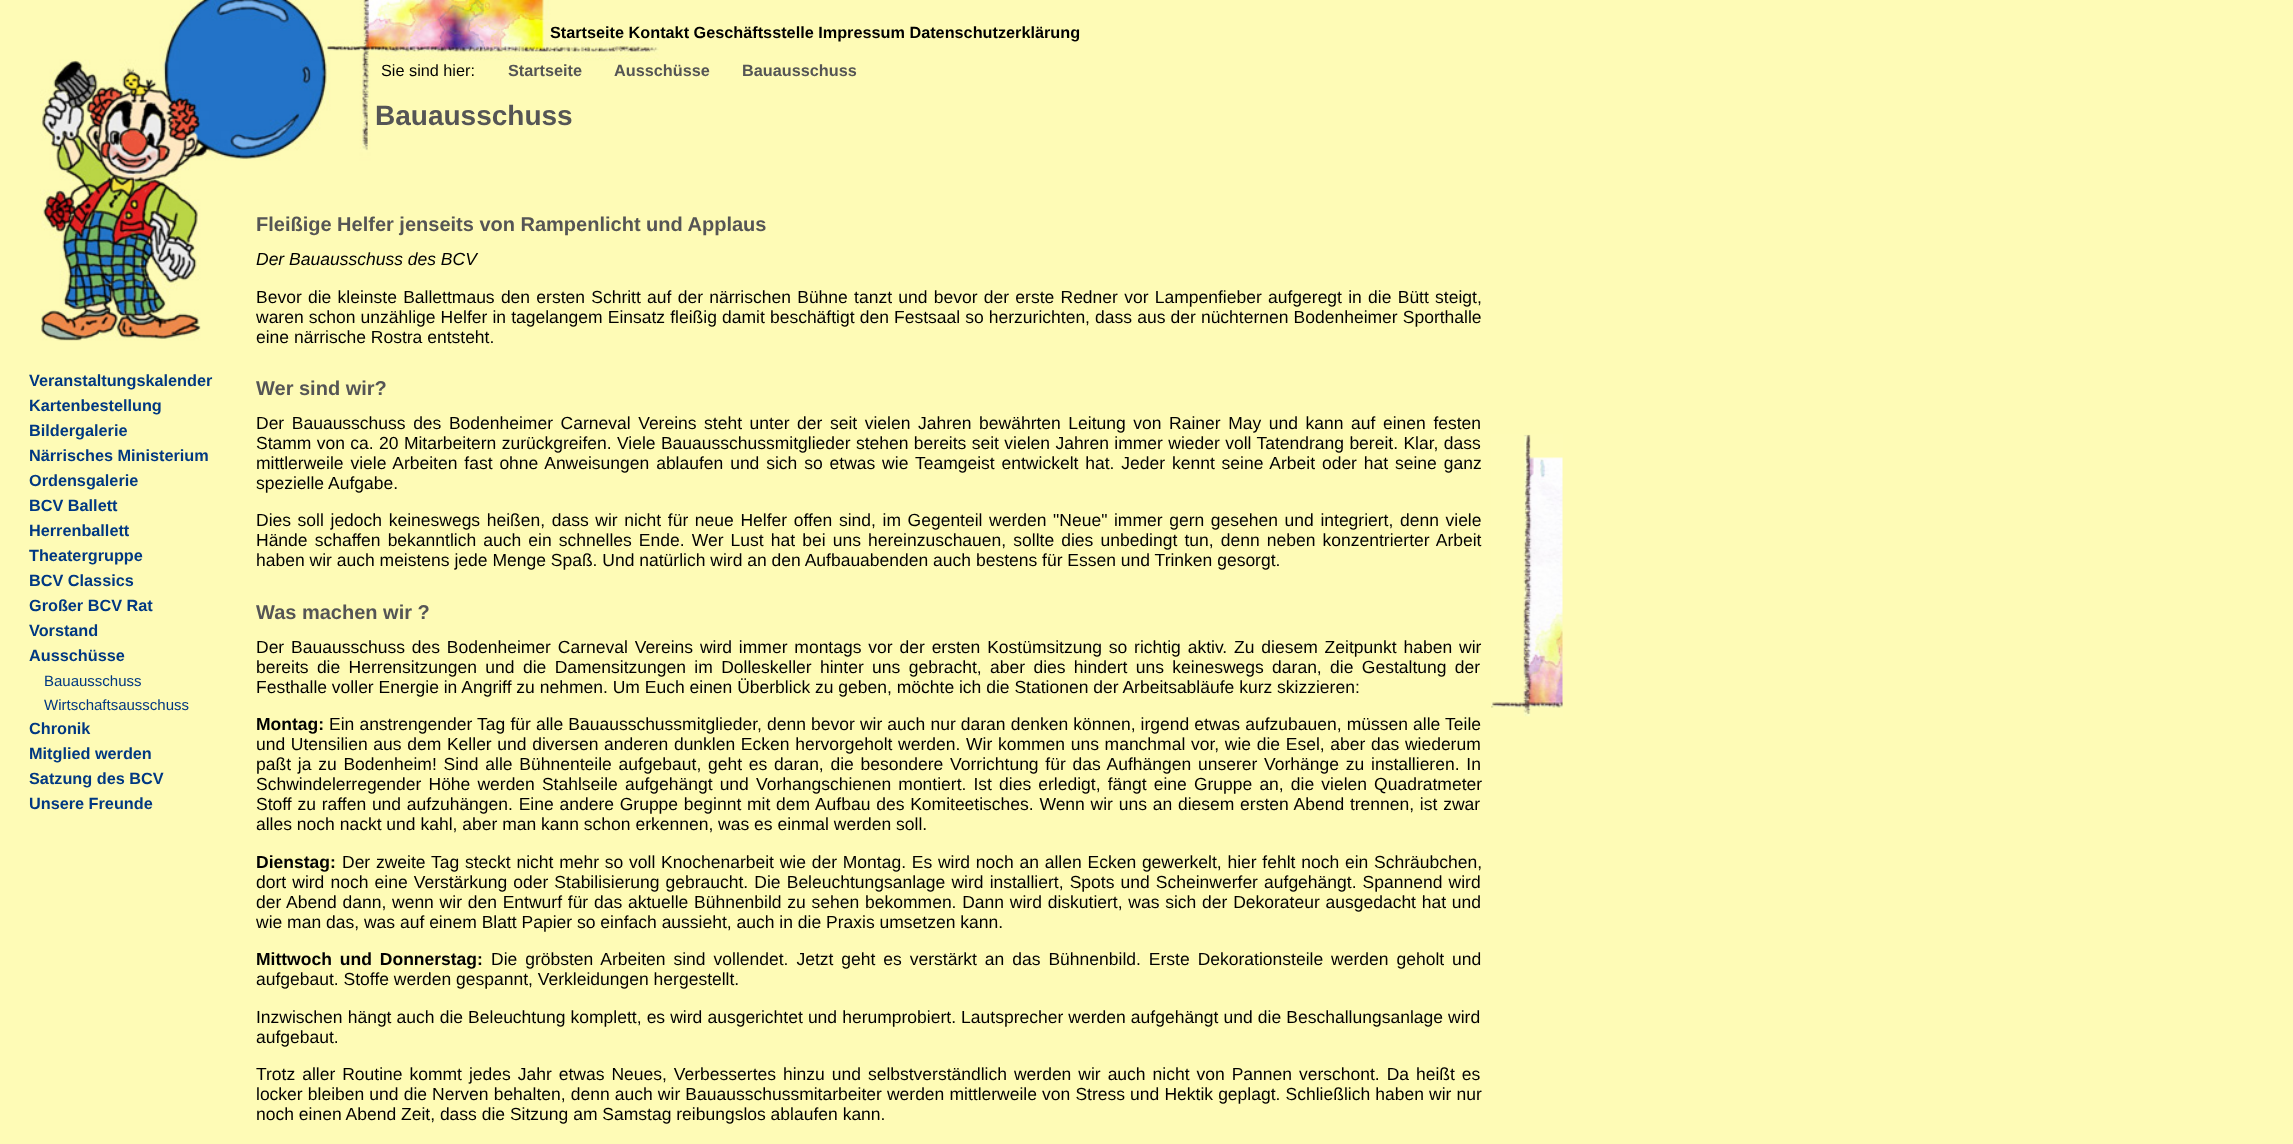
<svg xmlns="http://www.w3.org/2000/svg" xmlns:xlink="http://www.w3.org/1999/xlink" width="2293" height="1144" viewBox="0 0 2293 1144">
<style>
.cls-1{font:bold 16.25px Liberation Sans;fill:#000000}
.cls-2{font:16.25px Liberation Sans;fill:#000000}
.cls-3{font:bold 16.25px Liberation Sans;fill:#555555}
.cls-4{font:bold 28px Liberation Sans;fill:#555555}
.cls-5{font:bold 16.25px Liberation Sans;fill:#003882}
.cls-6{font:15px Liberation Sans;fill:#003882}
.cls-7{font:bold 20px Liberation Sans;fill:#555555}
.cls-8{font:italic 17.5px Liberation Sans;fill:#000000}
.cls-9{font:17.5px Liberation Sans;fill:#000000}
.cls-10{font:bold 17.5px Liberation Sans;fill:#000000}
</style>
<rect width="100%" height="100%" fill="#fefbb6"/>
<image xlink:href="image0.png" x="40" y="0" width="619" height="341"/>
<image xlink:href="image1.png" x="1491" y="434" width="72" height="283"/>
<text class="cls-1" x="550" y="38">Startseite Kontakt Geschäftsstelle Impressum Datenschutzerklärung</text>
<text class="cls-2" x="381" y="76">Sie sind hier:</text>
<text class="cls-3" x="508" y="76">Startseite</text>
<text class="cls-3" x="614" y="76">Ausschüsse</text>
<text class="cls-3" x="742" y="76">Bauausschuss</text>
<text class="cls-4" x="375" y="125">Bauausschuss</text>
<text class="cls-5"><tspan x="29" y="386">Veranstaltungskalender</tspan><tspan x="29" y="411">Kartenbestellung</tspan><tspan x="29" y="436">Bildergalerie</tspan><tspan x="29" y="461">Närrisches Ministerium</tspan><tspan x="29" y="486">Ordensgalerie</tspan><tspan x="29" y="511">BCV Ballett</tspan><tspan x="29" y="536">Herrenballett</tspan><tspan x="29" y="561">Theatergruppe</tspan><tspan x="29" y="586">BCV Classics</tspan><tspan x="29" y="611">Großer BCV Rat</tspan><tspan x="29" y="636">Vorstand</tspan><tspan x="29" y="661">Ausschüsse</tspan></text>
<text class="cls-6"><tspan x="44" y="686">Bauausschuss</tspan><tspan x="44" y="710">Wirtschaftsausschuss</tspan></text>
<text class="cls-5"><tspan x="29" y="734">Chronik</tspan><tspan x="29" y="759">Mitglied werden</tspan><tspan x="29" y="784">Satzung des BCV</tspan><tspan x="29" y="809">Unsere Freunde</tspan></text>
<text class="cls-7" x="256" y="231">Fleißige Helfer jenseits von Rampenlicht und Applaus</text>
<text class="cls-8" x="256" y="265">Der Bauausschuss des BCV</text>
<text class="cls-9"><tspan x="256" y="303" word-spacing="1.4">Bevor die kleinste Ballettmaus den ersten Schritt auf der närrischen Bühne tanzt und bevor der erste Redner vor Lampenfieber aufgeregt in die Bütt steigt,</tspan><tspan x="256" y="323" word-spacing="0.25">waren schon unzählige Helfer in tagelangem Einsatz fleißig damit beschäftigt den Festsaal so herzurichten, dass aus der nüchternen Bodenheimer Sporthalle</tspan><tspan x="256" y="343">eine närrische Rostra entsteht.</tspan></text>
<text class="cls-7" x="256" y="395">Wer sind wir?</text>
<text class="cls-9"><tspan x="256" y="429" word-spacing="2.7">Der Bauausschuss des Bodenheimer Carneval Vereins steht unter der seit vielen Jahren bewährten Leitung von Rainer May und kann auf einen festen</tspan><tspan x="256" y="449" word-spacing="0.5">Stamm von ca. 20 Mitarbeitern zurückgreifen. Viele Bauausschussmitglieder stehen bereits seit vielen Jahren immer wieder voll Tatendrang bereit. Klar, dass</tspan><tspan x="256" y="469" word-spacing="2">mittlerweile viele Arbeiten fast ohne Anweisungen ablaufen und sich so etwas wie Teamgeist entwickelt hat. Jeder kennt seine Arbeit oder hat seine ganz</tspan><tspan x="256" y="489">spezielle Aufgabe.</tspan></text>
<text class="cls-9"><tspan x="256" y="526" word-spacing="1.75">Dies soll jedoch keineswegs heißen, dass wir nicht für neue Helfer offen sind, im Gegenteil werden "Neue" immer gern gesehen und integriert, denn viele</tspan><tspan x="256" y="546" word-spacing="2.25">Hände schaffen bekanntlich auch ein schnelles Ende. Wer Lust hat bei uns hereinzuschauen, sollte dies unbedingt tun, denn neben konzentrierter Arbeit</tspan><tspan x="256" y="566">haben wir auch meistens jede Menge Spaß. Und natürlich wird an den Aufbauabenden auch bestens für Essen und Trinken gesorgt.</tspan></text>
<text class="cls-7" x="256" y="619">Was machen wir ?</text>
<text class="cls-9"><tspan x="256" y="653" word-spacing="2">Der Bauausschuss des Bodenheimer Carneval Vereins wird immer montags vor der ersten Kostümsitzung so richtig aktiv. Zu diesem Zeitpunkt haben wir</tspan><tspan x="256" y="673" word-spacing="3.5">bereits die Herrensitzungen und die Damensitzungen im Dolleskeller hinter uns gebracht, aber dies hindert uns keineswegs daran, die Gestaltung der</tspan><tspan x="256" y="693">Festhalle voller Energie in Angriff zu nehmen. Um Euch einen Überblick zu geben, möchte ich die Stationen der Arbeitsabläufe kurz skizzieren:</tspan></text>
<text class="cls-10" x="256" y="730">Montag:</text>
<text class="cls-9" x="329" y="730" word-spacing="0.25">Ein anstrengender Tag für alle Bauausschussmitglieder, denn bevor wir auch nur daran denken können, irgend etwas aufzubauen, müssen alle Teile</text>
<text class="cls-9"><tspan x="256" y="750" word-spacing="0.8">und Utensilien aus dem Keller und diversen anderen dunklen Ecken hervorgeholt werden. Wir kommen uns manchmal vor, wie die Esel, aber das wiederum</tspan><tspan x="256" y="770" word-spacing="1.9">paßt ja zu Bodenheim! Sind alle Bühnenteile aufgebaut, geht es daran, die besondere Vorrichtung für das Aufhängen unserer Vorhänge zu installieren. In</tspan><tspan x="256" y="790" word-spacing="2.25">Schwindelerregender Höhe werden Stahlseile aufgehängt und Vorhangschienen montiert. Ist dies erledigt, fängt eine Gruppe an, die vielen Quadratmeter</tspan><tspan x="256" y="810" word-spacing="0.9">Stoff zu raffen und aufzuhängen. Eine andere Gruppe beginnt mit dem Aufbau des Komiteetisches. Wenn wir uns an diesem ersten Abend trennen, ist zwar</tspan><tspan x="256" y="830">alles noch nackt und kahl, aber man kann schon erkennen, was es einmal werden soll.</tspan></text>
<text class="cls-10" x="256" y="868">Dienstag:</text>
<text class="cls-9" x="342" y="868" word-spacing="0.9">Der zweite Tag steckt nicht mehr so voll Knochenarbeit wie der Montag. Es wird noch an allen Ecken gewerkelt, hier fehlt noch ein Schräubchen,</text>
<text class="cls-9"><tspan x="256" y="888" word-spacing="1.25">dort wird noch eine Verstärkung oder Stabilisierung gebraucht. Die Beleuchtungsanlage wird installiert, Spots und Scheinwerfer aufgehängt. Spannend wird</tspan><tspan x="256" y="908" word-spacing="0.9">der Abend dann, wenn wir den Entwurf für das aktuelle Bühnenbild zu sehen bekommen. Dann wird diskutiert, was sich der Dekorateur ausgedacht hat und</tspan><tspan x="256" y="928">wie man das, was auf einem Blatt Papier so einfach aussieht, auch in die Praxis umsetzen kann.</tspan></text>
<text class="cls-10" x="256" y="965" word-spacing="3.1">Mittwoch und Donnerstag:</text>
<text class="cls-9" x="491" y="965" word-spacing="3.1">Die gröbsten Arbeiten sind vollendet. Jetzt geht es verstärkt an das Bühnenbild. Erste Dekorationsteile werden geholt und</text>
<text class="cls-9" x="256" y="985">aufgebaut. Stoffe werden gespannt, Verkleidungen hergestellt.</text>
<text class="cls-9"><tspan x="256" y="1023" word-spacing="0.25">Inzwischen hängt auch die Beleuchtung komplett, es wird ausgerichtet und herumprobiert. Lautsprecher werden aufgehängt und die Beschallungsanlage wird</tspan><tspan x="256" y="1043">aufgebaut.</tspan></text>
<text class="cls-9"><tspan x="256" y="1080" word-spacing="2.1">Trotz aller Routine kommt jedes Jahr etwas Neues, Verbessertes hinzu und selbstverständlich werden wir auch nicht von Pannen verschont. Da heißt es</tspan><tspan x="256" y="1100" word-spacing="0.25">locker bleiben und die Nerven behalten, denn auch wir Bauausschussmitarbeiter werden mittlerweile von Stress und Hektik geplagt. Schließlich haben wir nur</tspan><tspan x="256" y="1120">noch einen Abend Zeit, dass die Sitzung am Samstag reibungslos ablaufen kann.</tspan></text>
</svg>
